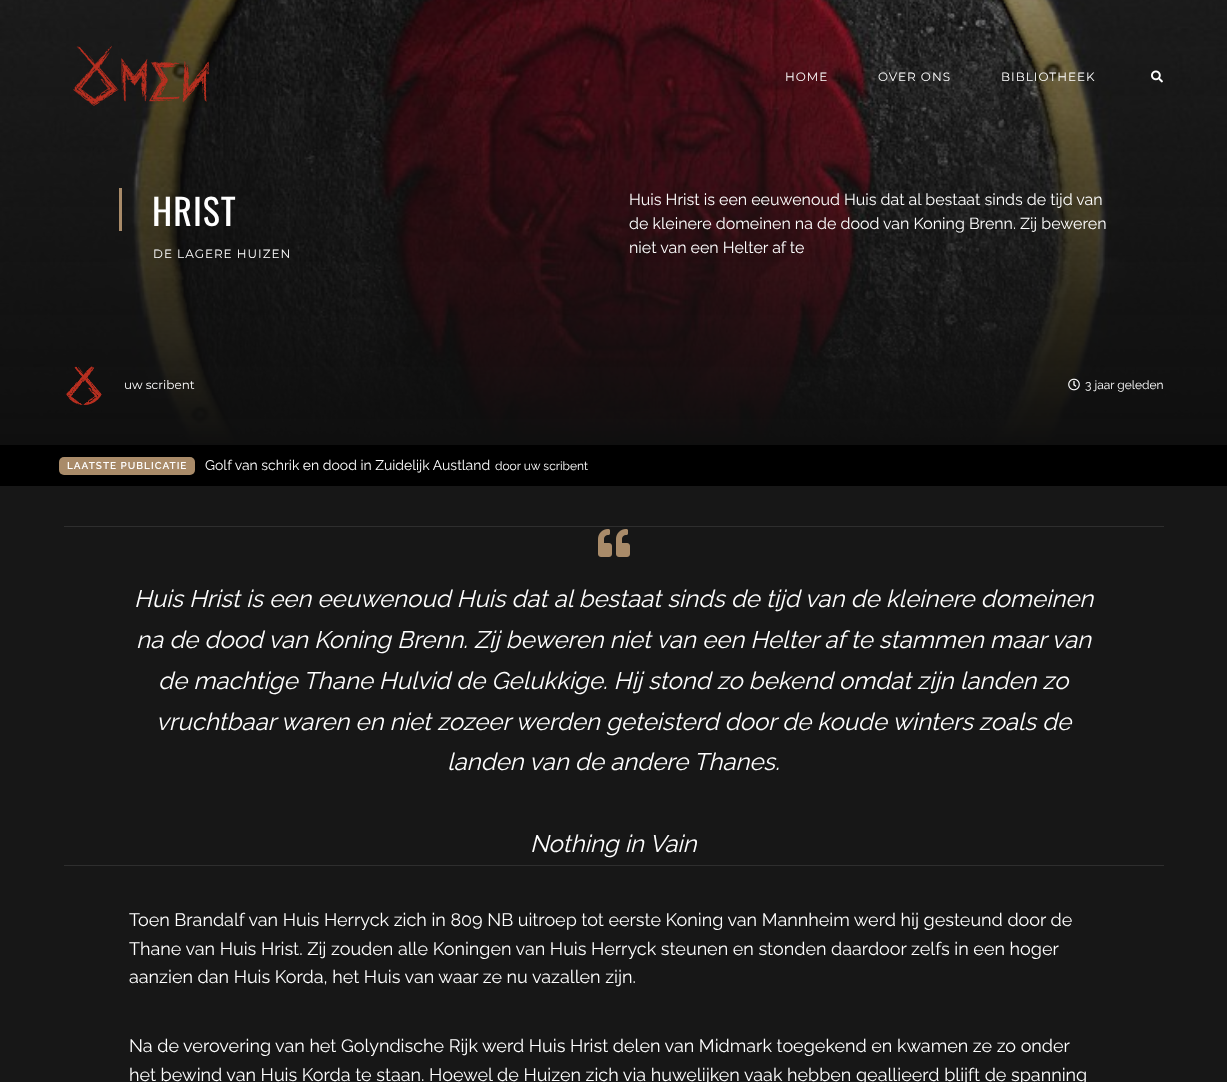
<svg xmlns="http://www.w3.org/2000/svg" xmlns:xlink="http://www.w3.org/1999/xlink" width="1227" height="1082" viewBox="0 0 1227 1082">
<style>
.cls-1{font:12px Montserrat;letter-spacing:1px;fill:#ffffff}
.cls-2{font:36px Oswald;letter-spacing:1px;fill:#ffffff}
.cls-3{font:16px Raleway;fill:#ffffff}
.cls-4{font:12px Montserrat;fill:#ffffff}
.cls-5{font:12px Raleway;fill:#ffffff}
.cls-6{font:600 10px Raleway;letter-spacing:1px;fill:#ffffff}
.cls-7{font:14px Raleway;fill:#ffffff}
.cls-8{font:italic 24px Raleway;fill:#ffffff}
.cls-9{font:18px Raleway;fill:#ffffff}
</style>
<rect width="100%" height="100%" fill="#171717"/>
<image xlink:href="image2.png" x="0" y="0" width="1227" height="445"/>
<image xlink:href="image0.png" x="73" y="45" width="137" height="61"/>
<image xlink:href="image1.png" x="1151" y="70" width="12" height="13"/>
<rect fill="#a98b69" x="119" y="188" width="3" height="43"/>
<image xlink:href="image3.png" x="66" y="366" width="36" height="39"/>
<image xlink:href="image4.png" x="1068" y="378" width="12" height="13"/>
<rect fill="#000000" x="0" y="445" width="1227" height="41"/>
<rect fill="#a98b69" x="59" y="457" width="136" height="18" rx="5"/>
<rect fill="#2e2e2e" x="64" y="526" width="1100" height="1"/>
<rect fill="#2e2e2e" x="64" y="865" width="1100" height="1"/>
<image xlink:href="image5.png" x="598" y="529" width="32" height="28"/>
<text class="cls-1" x="785" y="81">HOME</text>
<text class="cls-1" x="878" y="81">OVER ONS</text>
<text class="cls-1" x="1001" y="81">BIBLIOTHEEK</text>
<text class="cls-2" x="152" y="226">HRIST</text>
<text class="cls-1" x="153" y="258">DE LAGERE HUIZEN</text>
<text class="cls-3"><tspan x="629" y="205">Huis Hrist is een eeuwenoud Huis dat al bestaat sinds de tijd van</tspan><tspan x="629" y="229">de kleinere domeinen na de dood van Koning Brenn. Zij beweren</tspan><tspan x="629" y="253">niet van een Helter af te</tspan></text>
<text class="cls-4" x="124" y="389">uw scribent</text>
<text class="cls-5" x="1085" y="389">3 jaar geleden</text>
<text class="cls-6" x="67" y="469">LAATSTE PUBLICATIE</text>
<text class="cls-7" x="205" y="470">Golf van schrik en dood in Zuidelijk Austland</text>
<text class="cls-5" x="495" y="470">door uw scribent</text>
<text class="cls-8" x="134" y="607">Huis Hrist is een eeuwenoud Huis dat al bestaat sinds de tijd van de kleinere domeinen</text>
<text class="cls-8" x="136" y="648">na de dood van Koning Brenn. Zij beweren niet van een Helter af te stammen maar van</text>
<text class="cls-8" x="158" y="689">de machtige Thane Hulvid de Gelukkige. Hij stond zo bekend omdat zijn landen zo</text>
<text class="cls-8" x="156" y="730">vruchtbaar waren en niet zozeer werden geteisterd door de koude winters zoals de</text>
<text class="cls-8" x="447" y="770">landen van de andere Thanes.</text>
<text class="cls-8" x="530" y="852">Nothing in Vain</text>
<text class="cls-9"><tspan x="129" y="926">Toen Brandalf van Huis Herryck zich in 809 NB uitroep tot eerste Koning van Mannheim werd hij gesteund door de</tspan><tspan x="129" y="955">Thane van Huis Hrist. Zij zouden alle Koningen van Huis Herryck steunen en stonden daardoor zelfs in een hoger</tspan><tspan x="129" y="983">aanzien dan Huis Korda, het Huis van waar ze nu vazallen zijn.</tspan></text>
<text class="cls-9"><tspan x="129" y="1052">Na de verovering van het Golyndische Rijk werd Huis Hrist delen van Midmark toegekend en kwamen ze zo onder</tspan><tspan x="129" y="1081">het bewind van Huis Korda te staan. Hoewel de Huizen zich via huwelijken vaak hebben geallieerd blijft de spanning</tspan></text>
</svg>
